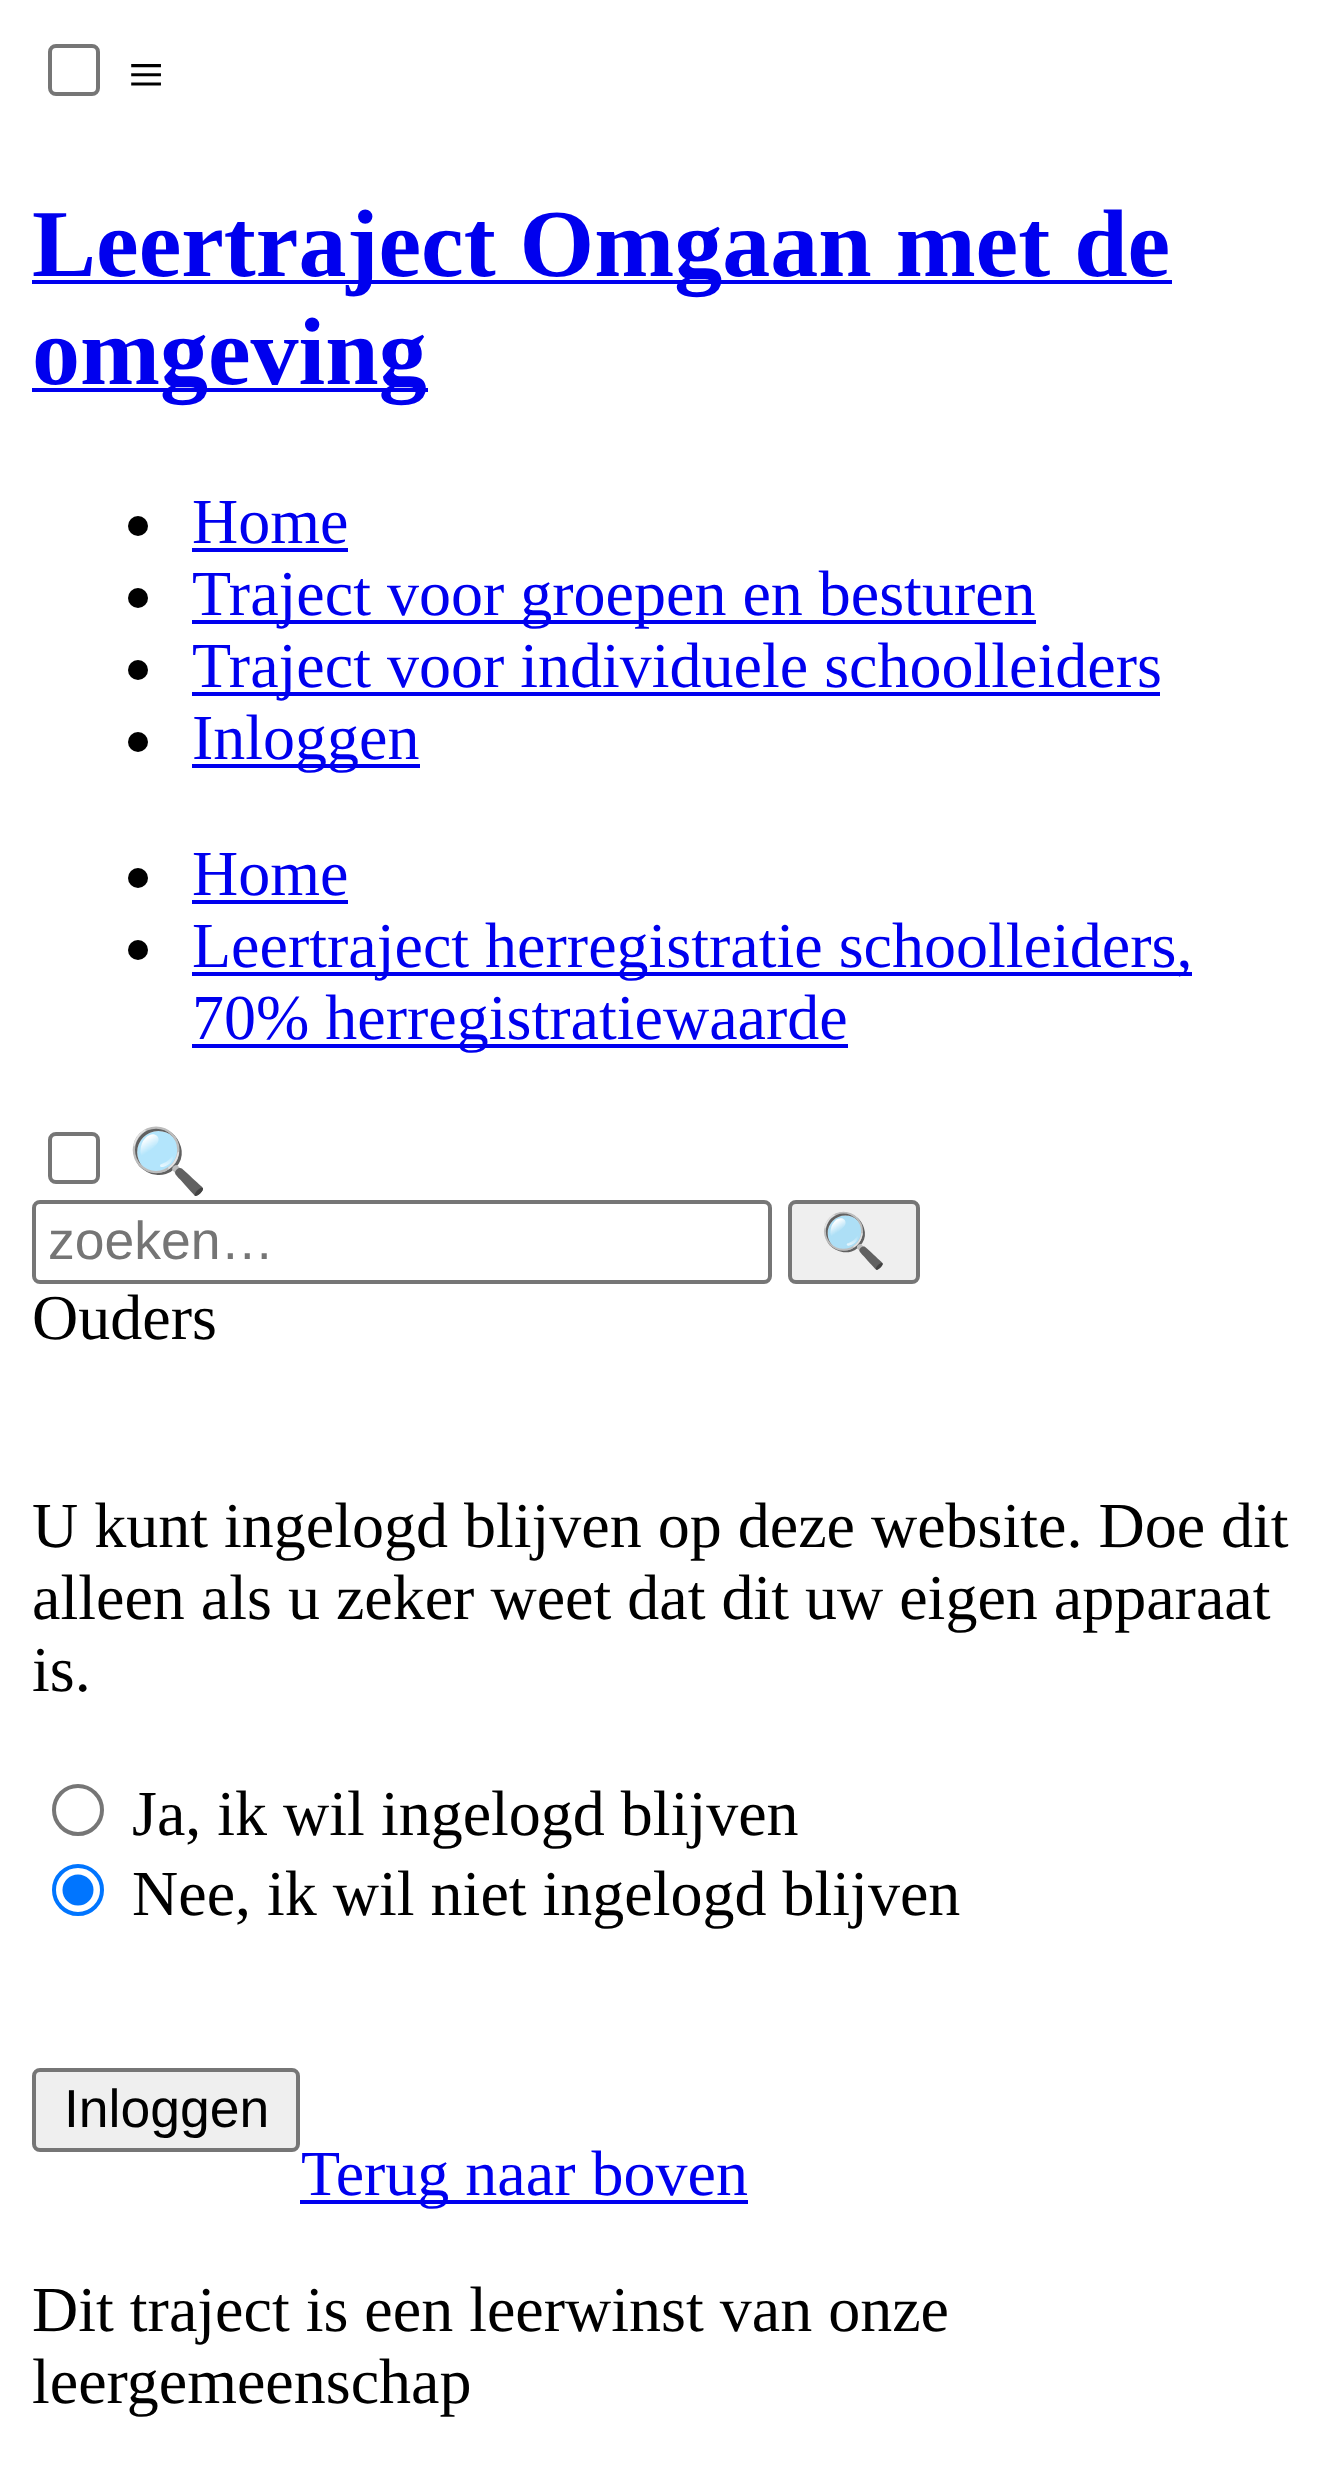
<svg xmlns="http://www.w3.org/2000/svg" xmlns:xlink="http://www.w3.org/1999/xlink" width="1343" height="2469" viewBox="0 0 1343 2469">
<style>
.cls-1{font:64px Liberation Serif;fill:#000000}
.cls-2{font:bold 96px Liberation Serif;fill:#0000ee}
.cls-3{font:64px Liberation Serif;fill:#0000ee}
.cls-4{font:64px Noto Color Emoji;fill:#000000}
.cls-5{font:53.5px Liberation Sans;fill:#757575}
.cls-6{font:53.5px Noto Color Emoji;fill:#000000}
.cls-7{font:53.5px Liberation Sans;fill:#000000}
</style>
<rect width="100%" height="100%" fill="#ffffff"/>
<rect fill="none" stroke="#767676" stroke-width="4" x="50" y="46" width="48" height="48" rx="6"/>
<rect fill="#0000ee" x="32" y="280" width="1140" height="4"/>
<rect fill="#0000ee" x="32" y="388" width="396" height="4"/>
<circle fill="#000000" cx="138" cy="526" r="10"/>
<rect fill="#0000ee" x="192" y="548" width="156" height="4"/>
<circle fill="#000000" cx="138" cy="598" r="10"/>
<rect fill="#0000ee" x="192" y="620" width="844" height="4"/>
<circle fill="#000000" cx="138" cy="670" r="10"/>
<rect fill="#0000ee" x="192" y="692" width="968" height="4"/>
<circle fill="#000000" cx="138" cy="742" r="10"/>
<rect fill="#0000ee" x="192" y="764" width="228" height="4"/>
<circle fill="#000000" cx="138" cy="878" r="10"/>
<rect fill="#0000ee" x="192" y="900" width="156" height="4"/>
<circle fill="#000000" cx="138" cy="950" r="10"/>
<rect fill="#0000ee" x="192" y="972" width="1000" height="4"/>
<rect fill="#0000ee" x="192" y="1044" width="656" height="4"/>
<rect fill="none" stroke="#767676" stroke-width="4" x="50" y="1134" width="48" height="48" rx="6"/>
<rect fill="none" stroke="#767676" stroke-width="4" x="34" y="1202" width="736" height="80" rx="6"/>
<rect fill="#efefef" stroke="#767676" stroke-width="4" x="790" y="1202" width="128" height="80" rx="6"/>
<circle fill="none" stroke="#767676" stroke-width="4" cx="78" cy="1810" r="24"/>
<circle fill="none" stroke="#0075ff" stroke-width="4" cx="78" cy="1890" r="24"/>
<circle fill="#0075ff" cx="78" cy="1890" r="15.5"/>
<rect fill="#efefef" stroke="#767676" stroke-width="4" x="34" y="2070" width="264" height="80" rx="6"/>
<rect fill="#0000ee" x="300" y="2200" width="448" height="4"/>
<text class="cls-1" x="128" y="96">≡</text>
<text class="cls-2"><tspan x="32" y="276">Leertraject Omgaan met de</tspan><tspan x="32" y="384">omgeving</tspan></text>
<text class="cls-3"><tspan x="192" y="543">Home</tspan><tspan x="192" y="615">Traject voor groepen en besturen</tspan><tspan x="192" y="687">Traject voor individuele schoolleiders</tspan><tspan x="192" y="759">Inloggen</tspan></text>
<text class="cls-3"><tspan x="192" y="895">Home</tspan><tspan x="192" y="967">Leertraject herregistratie schoolleiders,</tspan><tspan x="192" y="1039">70% herregistratiewaarde</tspan></text>
<text class="cls-4" x="128" y="1183">🔍</text>
<text class="cls-5" x="48" y="1259">zoeken…</text>
<text class="cls-6" x="820" y="1259">🔍</text>
<text class="cls-1" x="32" y="1339">Ouders</text>
<text class="cls-1"><tspan x="32" y="1547">U kunt ingelogd blijven op deze website. Doe dit</tspan><tspan x="32" y="1619">alleen als u zeker weet dat dit uw eigen apparaat</tspan><tspan x="32" y="1691">is.</tspan></text>
<text class="cls-1"><tspan x="132" y="1835">Ja, ik wil ingelogd blijven</tspan><tspan x="132" y="1915">Nee, ik wil niet ingelogd blijven</tspan></text>
<text class="cls-7" x="64" y="2127">Inloggen</text>
<text class="cls-3" x="301" y="2195">Terug naar boven</text>
<text class="cls-1"><tspan x="32" y="2331">Dit traject is een leerwinst van onze</tspan><tspan x="32" y="2403">leergemeenschap</tspan></text>
</svg>
